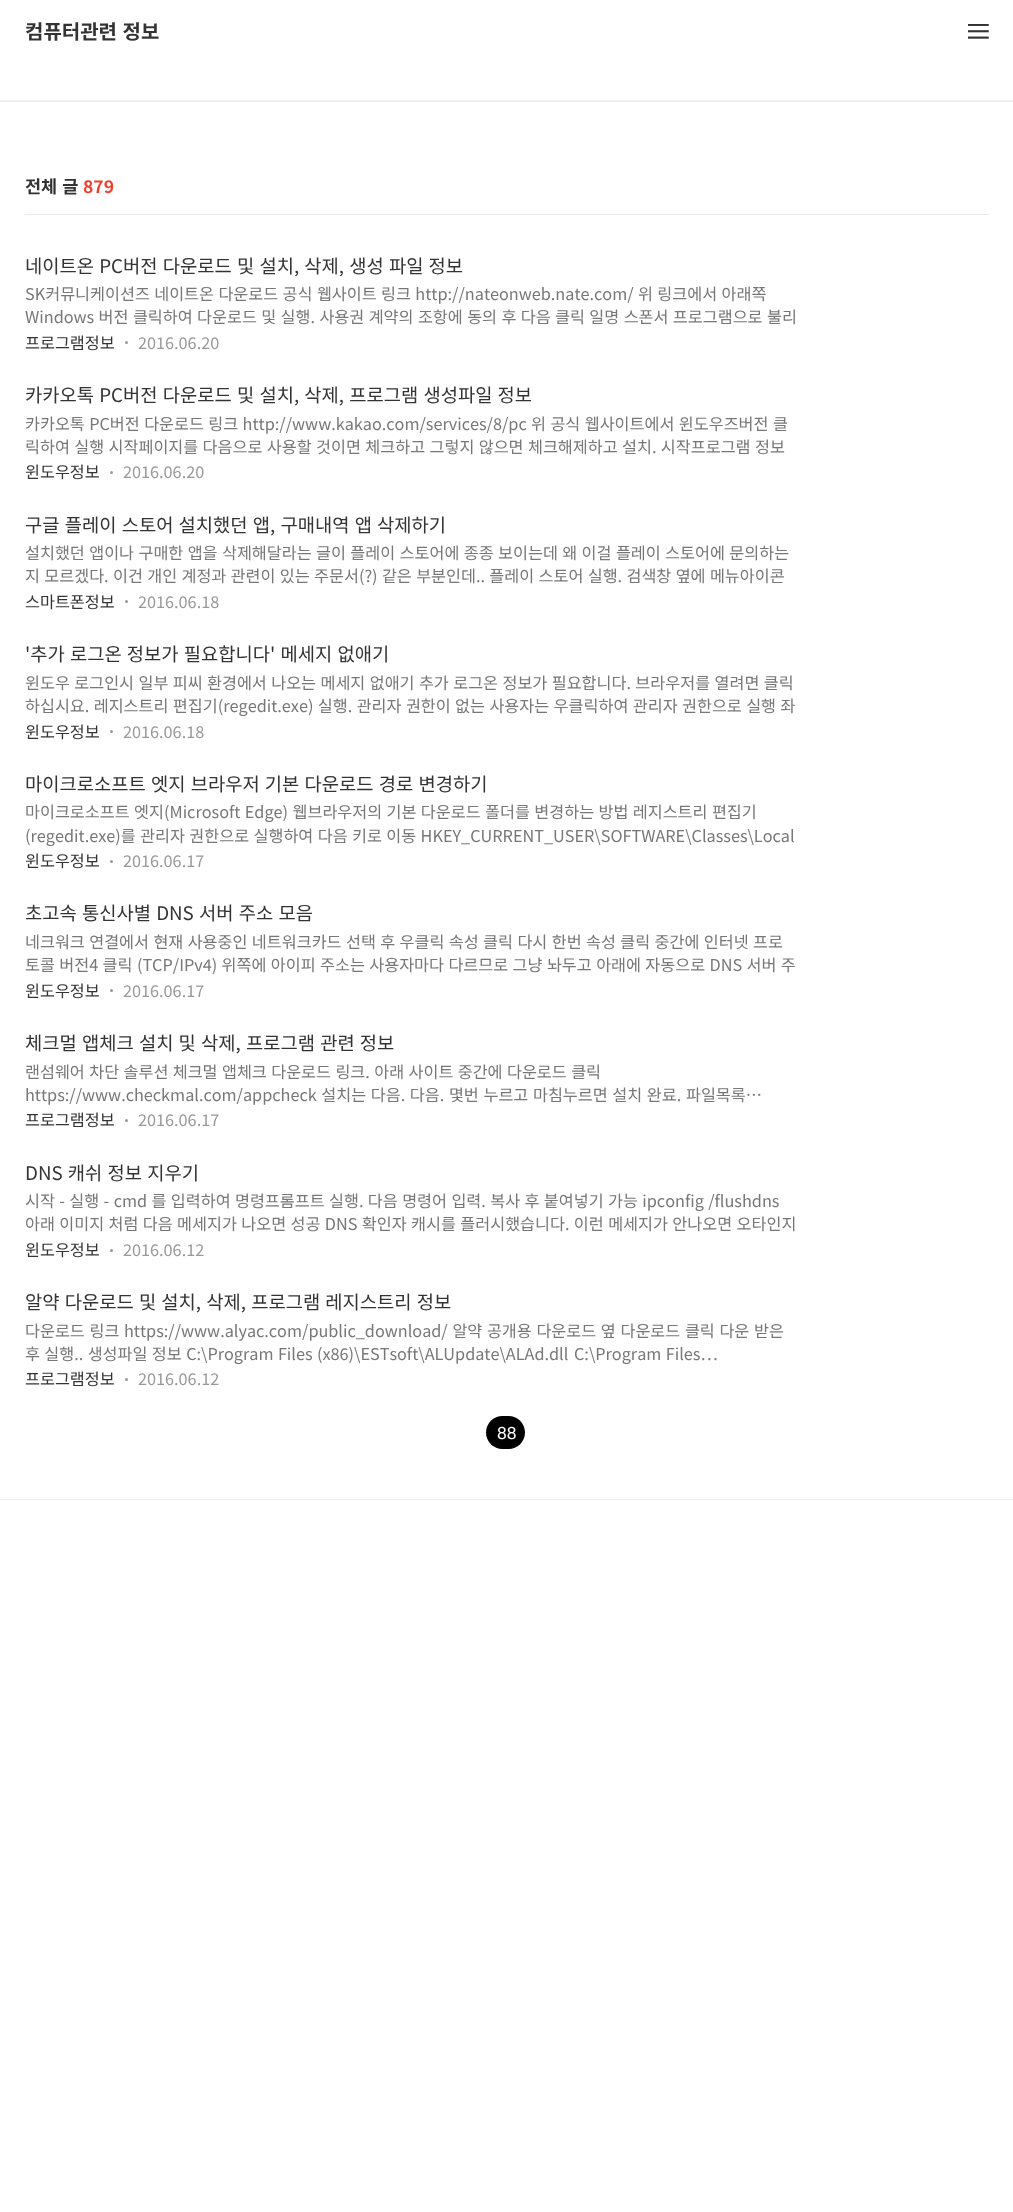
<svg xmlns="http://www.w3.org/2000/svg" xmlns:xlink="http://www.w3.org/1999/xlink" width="1013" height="2212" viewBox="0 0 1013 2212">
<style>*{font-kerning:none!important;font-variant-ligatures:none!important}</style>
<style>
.cls-1{font:bold 20px Noto Sans KR;fill:#333333}
.cls-2{font:bold 17.5px Noto Sans KR;fill:#333333}
.cls-3{font:bold 17.5px Noto Sans KR;fill:#ef402f}
.cls-4{font:18.75px Noto Sans KR;fill:#333333}
.cls-5{font:16.25px Noto Sans KR;fill:#777777}
.cls-6{font:16.25px Noto Sans KR;fill:#333333}
.cls-7{font:16.25px Noto Sans KR;fill:#999999}
.cls-8{font:17.5px Liberation Sans;fill:#ffffff}
</style>
<defs>
<clipPath id="clip1"><rect x="25" y="253" width="841" height="23"/></clipPath>
</defs>
<rect width="100%" height="100%" fill="#ffffff"/>
<rect fill="#efefef" x="0" y="100" width="1013" height="2"/>
<image xlink:href="image0.png" x="968" y="24" width="21" height="15"/>
<rect fill="#e8e8e8" x="25" y="214" width="964" height="1"/>
<circle fill="#999999" cx="126.5" cy="342.5" r="1.5"/>
<circle fill="#999999" cx="111.5" cy="472.5" r="1.5"/>
<circle fill="#999999" cx="126.5" cy="601.5" r="1.5"/>
<circle fill="#999999" cx="111.5" cy="731.5" r="1.5"/>
<circle fill="#999999" cx="111.5" cy="861.5" r="1.5"/>
<circle fill="#999999" cx="111.5" cy="990.5" r="1.5"/>
<circle fill="#999999" cx="126.5" cy="1120.5" r="1.5"/>
<circle fill="#999999" cx="111.5" cy="1250.5" r="1.5"/>
<circle fill="#999999" cx="126.5" cy="1379.5" r="1.5"/>
<rect fill="#000000" x="486" y="1416" width="39" height="33" rx="16.5"/>
<rect fill="#efefef" x="0" y="1499" width="1013" height="1"/>
<text class="cls-1" x="25" y="39" word-spacing="1">컴퓨터관련 정보</text>
<text class="cls-2" x="25" y="193" word-spacing="1">전체 글</text>
<text class="cls-3" x="83" y="193">879</text>
<g clip-path="url(#clip1)">
<text class="cls-4" x="25" y="273" word-spacing="1">네이트온 PC버전 다운로드 및 설치, 삭제, 생성 파일 정보</text>
</g>
<text class="cls-5"><tspan x="25" y="300" word-spacing="0.75">SK커뮤니케이션즈 네이트온 다운로드 공식 웹사이트 링크 http://nateonweb.nate.com/ 위 링크에서 아래쪽</tspan><tspan x="25" y="323" word-spacing="0.75">Windows 버전 클릭하여 다운로드 및 실행. 사용권 계약의 조항에 동의 후 다음 클릭 일명 스폰서 프로그램으로 불리</tspan></text>
<text class="cls-6" x="25" y="349">프로그램정보</text>
<text class="cls-7" x="138" y="349">2016.06.20</text>
<text class="cls-4" x="25" y="402" word-spacing="1">카카오톡 PC버전 다운로드 및 설치, 삭제, 프로그램 생성파일 정보</text>
<text class="cls-5"><tspan x="25" y="430" word-spacing="0.75">카카오톡 PC버전 다운로드 링크 http://www.kakao.com/services/8/pc 위 공식 웹사이트에서 윈도우즈버전 클</tspan><tspan x="25" y="453" word-spacing="0.75">릭하여 실행 시작페이지를 다음으로 사용할 것이면 체크하고 그렇지 않으면 체크해제하고 설치. 시작프로그램 정보</tspan></text>
<text class="cls-6" x="25" y="478">윈도우정보</text>
<text class="cls-7" x="123" y="478">2016.06.20</text>
<text class="cls-4" x="25" y="532" word-spacing="1">구글 플레이 스토어 설치했던 앱, 구매내역 앱 삭제하기</text>
<text class="cls-5"><tspan x="25" y="559" word-spacing="0.75">설치했던 앱이나 구매한 앱을 삭제해달라는 글이 플레이 스토어에 종종 보이는데 왜 이걸 플레이 스토어에 문의하는</tspan><tspan x="25" y="582" word-spacing="0.7">지 모르겠다. 이건 개인 계정과 관련이 있는 주문서(?) 같은 부분인데.. 플레이 스토어 실행. 검색창 옆에 메뉴아이콘</tspan></text>
<text class="cls-6" x="25" y="608">스마트폰정보</text>
<text class="cls-7" x="138" y="608">2016.06.18</text>
<text class="cls-4" x="25" y="661" word-spacing="1">'추가 로그온 정보가 필요합니다' 메세지 없애기</text>
<text class="cls-5"><tspan x="25" y="689" word-spacing="0.75">윈도우 로그인시 일부 피씨 환경에서 나오는 메세지 없애기 추가 로그온 정보가 필요합니다. 브라우저를 열려면 클릭</tspan><tspan x="25" y="712" word-spacing="0.75">하십시요. 레지스트리 편집기(regedit.exe) 실행. 관리자 권한이 없는 사용자는 우클릭하여 관리자 권한으로 실행 좌</tspan></text>
<text class="cls-6" x="25" y="738">윈도우정보</text>
<text class="cls-7" x="123" y="738">2016.06.18</text>
<text class="cls-4" x="25" y="791" word-spacing="1">마이크로소프트 엣지 브라우저 기본 다운로드 경로 변경하기</text>
<text class="cls-5"><tspan x="25" y="818" word-spacing="0.75">마이크로소프트 엣지(Microsoft Edge) 웹브라우저의 기본 다운로드 폴더를 변경하는 방법 레지스트리 편집기</tspan><tspan x="25" y="842" word-spacing="0.75">(regedit.exe)를 관리자 권한으로 실행하여 다음 키로 이동 HKEY_CURRENT_USER\SOFTWARE\Classes\Local</tspan></text>
<text class="cls-6" x="25" y="867">윈도우정보</text>
<text class="cls-7" x="123" y="867">2016.06.17</text>
<text class="cls-4" x="25" y="920" word-spacing="1">초고속 통신사별 DNS 서버 주소 모음</text>
<text class="cls-5"><tspan x="25" y="948" word-spacing="0.75">네크워크 연결에서 현재 사용중인 네트워크카드 선택 후 우클릭 속성 클릭 다시 한번 속성 클릭 중간에 인터넷 프로</tspan><tspan x="25" y="971" word-spacing="0.75">토콜 버전4 클릭 (TCP/IPv4) 위쪽에 아이피 주소는 사용자마다 다르므로 그냥 놔두고 아래에 자동으로 DNS 서버 주</tspan></text>
<text class="cls-6" x="25" y="997">윈도우정보</text>
<text class="cls-7" x="123" y="997">2016.06.17</text>
<text class="cls-4" x="25" y="1050" word-spacing="1">체크멀 앱체크 설치 및 삭제, 프로그램 관련 정보</text>
<text class="cls-5"><tspan x="25" y="1078" word-spacing="0.75">랜섬웨어 차단 솔루션 체크멀 앱체크 다운로드 링크. 아래 사이트 중간에 다운로드 클릭</tspan><tspan x="25" y="1101" word-spacing="1">https://www.checkmal.com/appcheck 설치는 다음. 다음. 몇번 누르고 마침누르면 설치 완료. 파일목록…</tspan></text>
<text class="cls-6" x="25" y="1126">프로그램정보</text>
<text class="cls-7" x="138" y="1126">2016.06.17</text>
<text class="cls-4" x="25" y="1180" word-spacing="1">DNS 캐쉬 정보 지우기</text>
<text class="cls-5"><tspan x="25" y="1207" word-spacing="0.75">시작 - 실행 - cmd 를 입력하여 명령프롬프트 실행. 다음 명령어 입력. 복사 후 붙여넣기 가능 ipconfig /flushdns</tspan><tspan x="25" y="1230" word-spacing="0.75">아래 이미지 처럼 다음 메세지가 나오면 성공 DNS 확인자 캐시를 플러시했습니다. 이런 메세지가 안나오면 오타인지</tspan></text>
<text class="cls-6" x="25" y="1256">윈도우정보</text>
<text class="cls-7" x="123" y="1256">2016.06.12</text>
<text class="cls-4" x="25" y="1309" word-spacing="1">알약 다운로드 및 설치, 삭제, 프로그램 레지스트리 정보</text>
<text class="cls-5"><tspan x="25" y="1337" word-spacing="1">다운로드 링크 https://www.alyac.com/public_download/ 알약 공개용 다운로드 옆 다운로드 클릭 다운 받은</tspan><tspan x="25" y="1360" word-spacing="0.75">후 실행.. 생성파일 정보 C:\Program Files (x86)\ESTsoft\ALUpdate\ALAd.dll</tspan></text>
<text class="cls-5" x="574" y="1360" word-spacing="0.75">C:\Program Files…</text>
<text class="cls-6" x="25" y="1385">프로그램정보</text>
<text class="cls-7" x="138" y="1385">2016.06.12</text>
<text class="cls-8" x="497" y="1439">88</text>
</svg>
